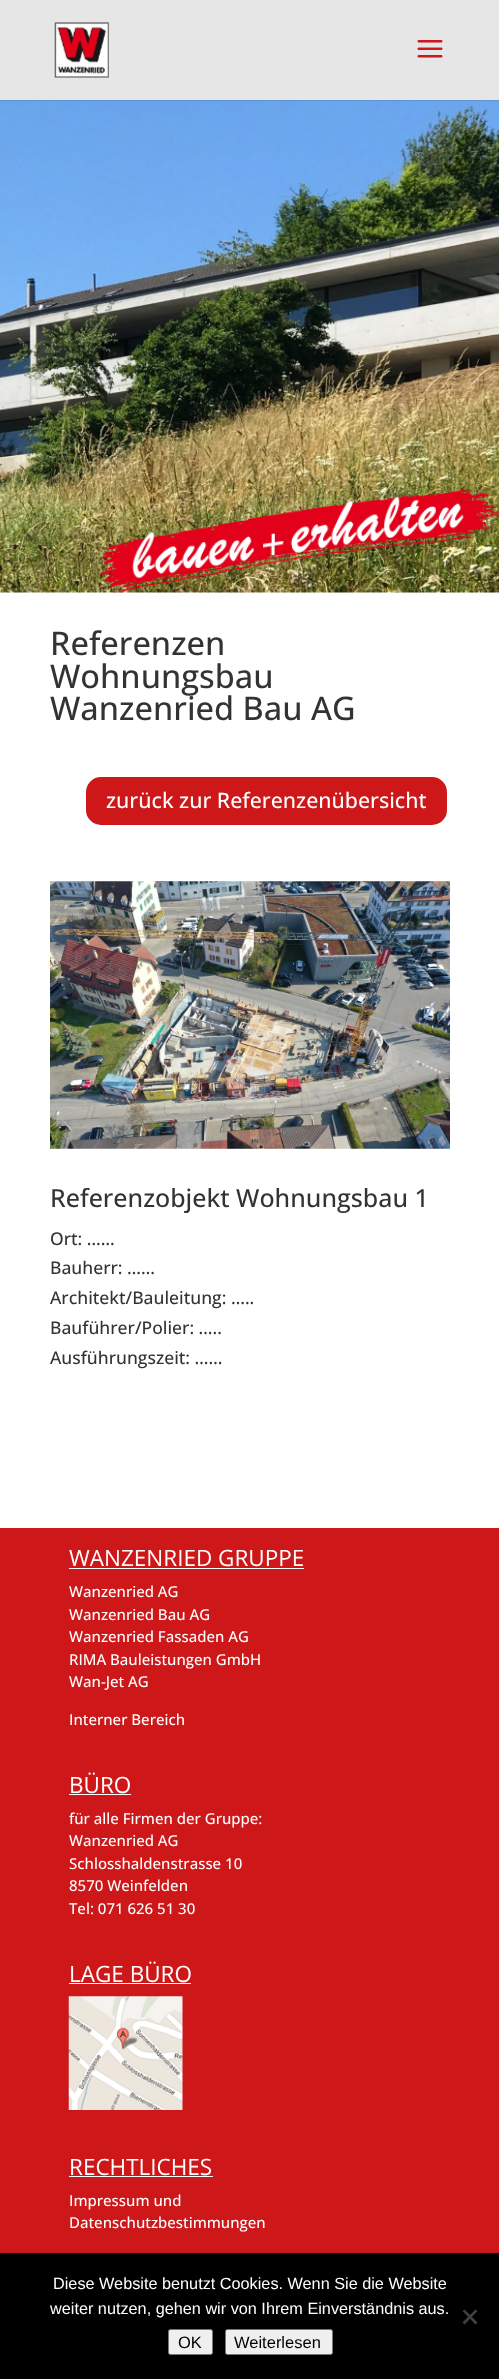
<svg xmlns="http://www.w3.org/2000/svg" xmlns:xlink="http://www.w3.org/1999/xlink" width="499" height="2379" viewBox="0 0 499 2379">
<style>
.cls-1{font:500 32.5px Open Sans;fill:#333333}
.cls-2{font:500 21.25px Open Sans;fill:#ffffff}
.cls-3{font:500 25px Open Sans;fill:#333333}
.cls-4{font:500 17.5px Open Sans;fill:#333333}
.cls-5{font:22.5px Open Sans;fill:#ffffff}
.cls-6{font:500 15px Open Sans;fill:#ffffff}
.cls-7{font:16.25px Liberation Sans;fill:#ffffff}
.cls-8{font:16.5px Liberation Sans;fill:#000000}
</style>
<rect width="100%" height="100%" fill="#ffffff"/>
<image xlink:href="image2.png" x="0" y="100" width="499" height="493"/>
<rect fill="#000000" fill-opacity="0.1" x="0" y="100" width="499" height="1"/>
<rect fill="#e6e6e6" x="0" y="0" width="499" height="100"/>
<image xlink:href="image0.png" x="54" y="22" width="55" height="56"/>
<image xlink:href="image1.png" x="417" y="40" width="26" height="18"/>
<image xlink:href="image3.png" x="100" y="488" width="399" height="105"/>
<rect fill="#cd1719" stroke="#ffffff" stroke-width="3" x="84.5" y="775.5" width="364" height="51" rx="16.5"/>
<image xlink:href="image4.png" x="50" y="881" width="400" height="268"/>
<rect fill="#cd1719" x="0" y="1528" width="499" height="725"/>
<rect fill="#ffffff" x="69" y="1568" width="235" height="1"/>
<rect fill="#ffffff" x="69" y="1794" width="62" height="1"/>
<rect fill="#ffffff" x="69" y="1983" width="122" height="1"/>
<image xlink:href="image5.png" x="68" y="1996" width="115" height="114"/>
<rect fill="#ffffff" x="69" y="2176" width="144" height="1"/>
<rect fill="#000000" x="0" y="2253" width="499" height="126"/>
<path fill="#404040" d="M475.5 2309.5L477.5 2311L464.5 2324.5L462.5 2322.5Z"/>
<path fill="#404040" d="M462.5 2311L464.5 2309.5L477.5 2322.5L475.5 2324.5Z"/>
<rect fill="#efefef" stroke="#767676" x="168.5" y="2329.5" width="44" height="25" rx="2"/>
<rect fill="#efefef" stroke="#767676" x="225.5" y="2329.5" width="107" height="25" rx="2"/>
<text class="cls-1"><tspan x="50" y="655">Referenzen</tspan><tspan x="50" y="688">Wohnungsbau</tspan><tspan x="50" y="720">Wanzenried Bau AG</tspan></text>
<text class="cls-2" x="106" y="808">zurück zur Referenzenübersicht</text>
<text class="cls-3" x="50" y="1207">Referenzobjekt Wohnungsbau 1</text>
<text class="cls-4"><tspan x="50" y="1245">Ort: ……</tspan><tspan x="50" y="1274">Bauherr: ……</tspan><tspan x="50" y="1304">Architekt/Bauleitung: …..</tspan><tspan x="50" y="1334">Bauführer/Polier: …..</tspan><tspan x="50" y="1364">Ausführungszeit: ……</tspan></text>
<text class="cls-5" x="69" y="1566">WANZENRIED GRUPPE</text>
<text class="cls-6"><tspan x="69" y="1597">Wanzenried AG</tspan><tspan x="69" y="1620">Wanzenried Bau AG</tspan><tspan x="69" y="1642">Wanzenried Fassaden AG</tspan><tspan x="69" y="1665">RIMA Bauleistungen GmbH</tspan><tspan x="69" y="1687">Wan-Jet AG</tspan></text>
<text class="cls-6" x="69" y="1725">Interner Bereich</text>
<text class="cls-5" x="69" y="1793">BÜRO</text>
<text class="cls-6"><tspan x="69" y="1824">für alle Firmen der Gruppe:</tspan><tspan x="69" y="1846">Wanzenried AG</tspan><tspan x="69" y="1869">Schlosshaldenstrasse 10</tspan><tspan x="69" y="1891">8570 Weinfelden</tspan><tspan x="69" y="1914">Tel: 071 626 51 30</tspan></text>
<text class="cls-5" x="69" y="1982">LAGE BÜRO</text>
<text class="cls-5" x="69" y="2175">RECHTLICHES</text>
<text class="cls-6"><tspan x="69" y="2206">Impressum und</tspan><tspan x="69" y="2228">Datenschutzbestimmungen</tspan></text>
<text class="cls-7" x="53" y="2289">Diese Website benutzt Cookies. Wenn Sie die Website</text>
<text class="cls-7" x="50" y="2314">weiter nutzen, gehen wir von Ihrem Einverständnis aus.</text>
<text class="cls-8" x="178" y="2348">OK</text>
<text class="cls-8" x="234" y="2348">Weiterlesen</text>
</svg>
